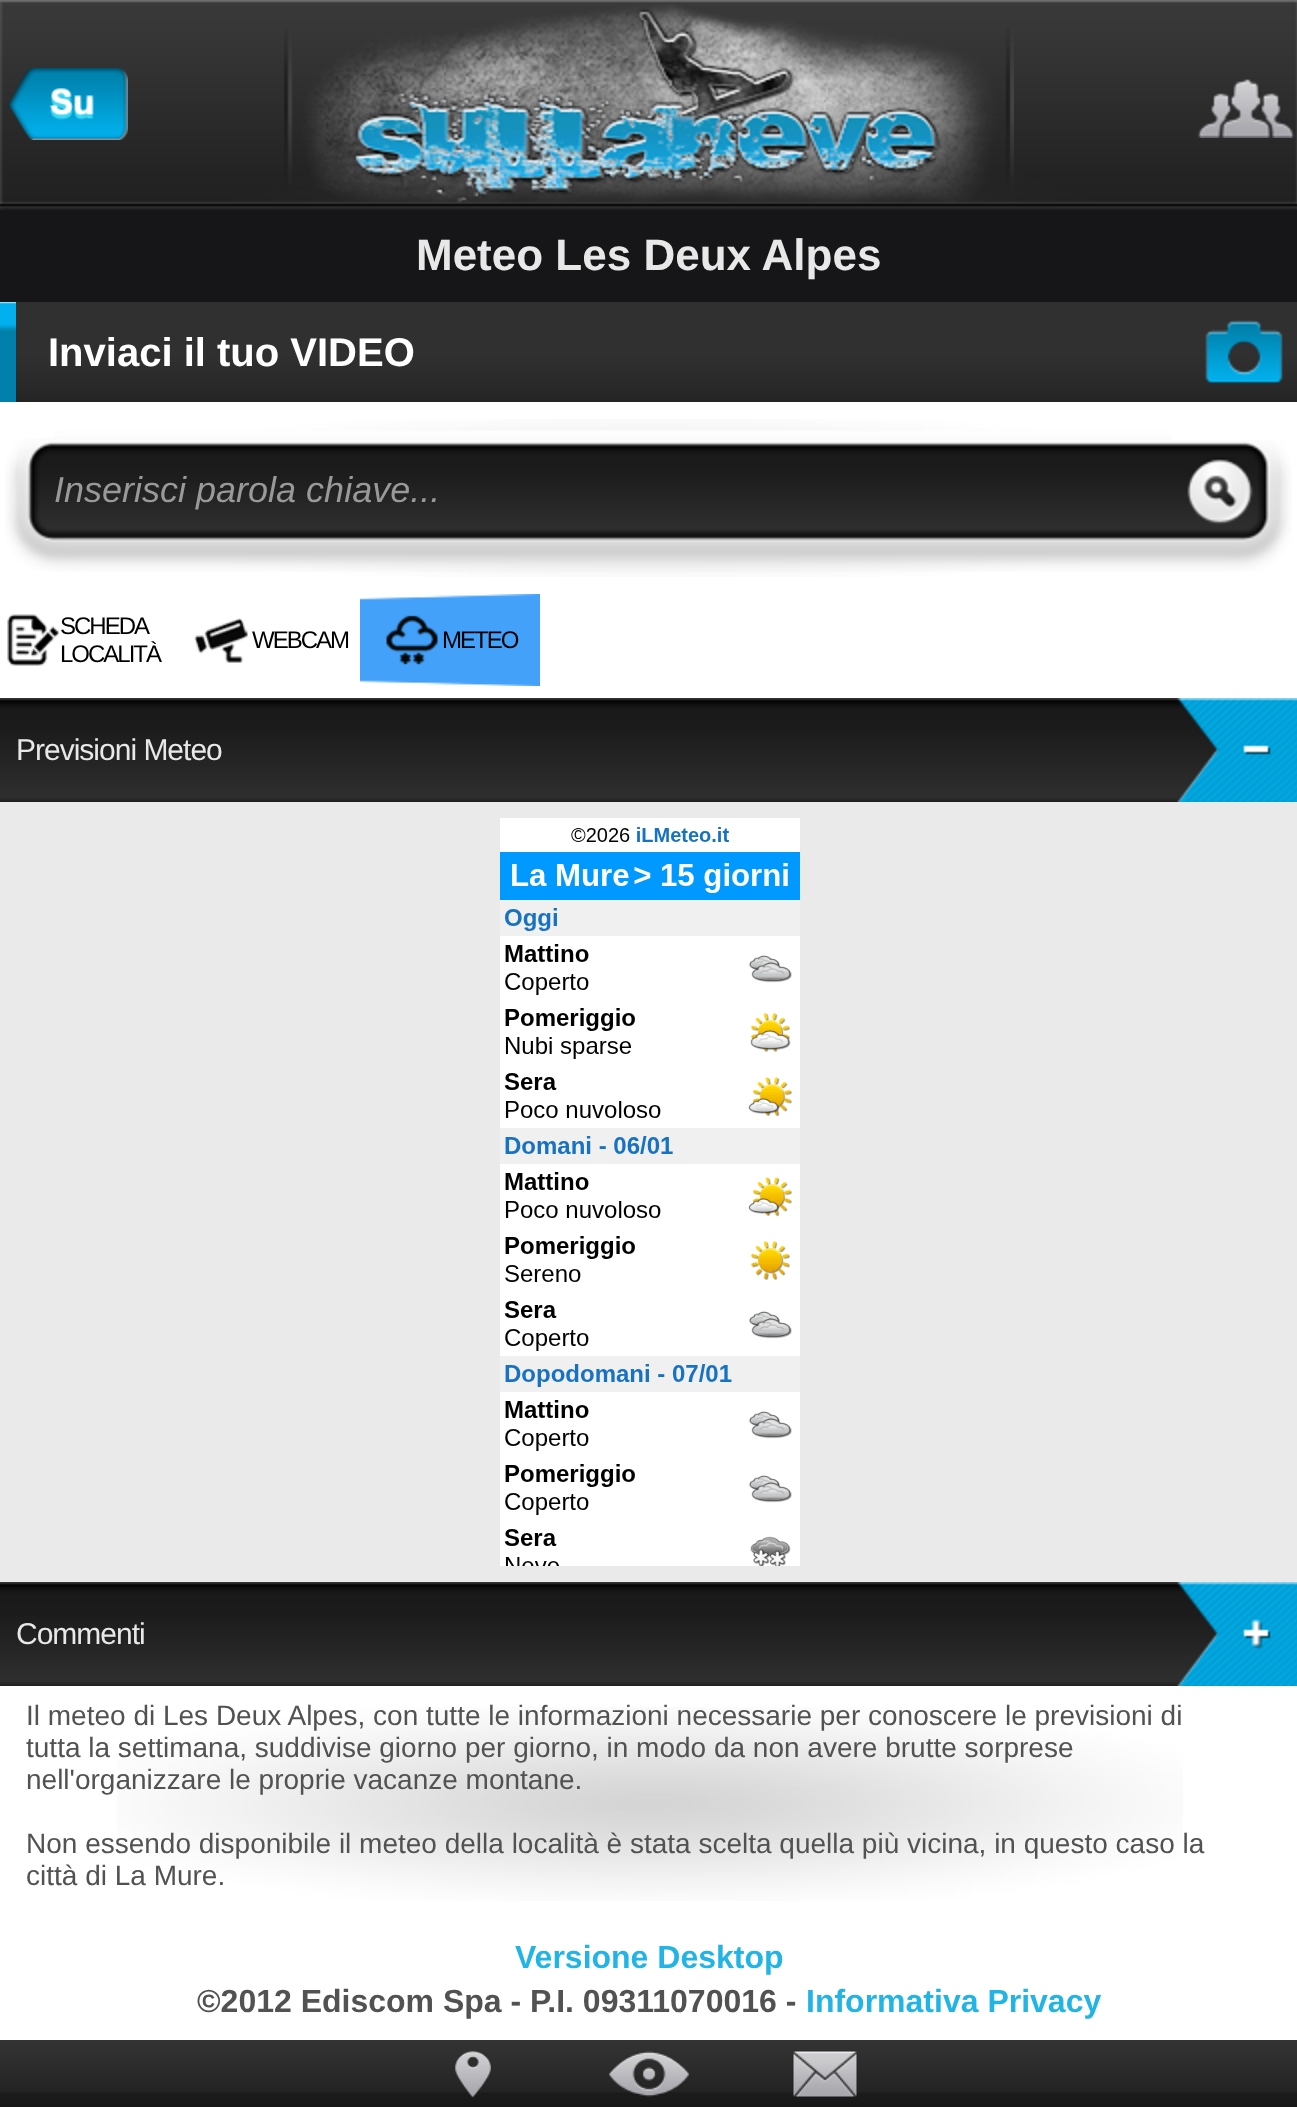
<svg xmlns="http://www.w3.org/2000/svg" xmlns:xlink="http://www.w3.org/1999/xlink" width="1297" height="2107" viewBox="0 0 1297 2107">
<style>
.cls-1{font:bold 44px Liberation Sans;fill:#e8e8e8}
.cls-2{font:bold 40px Liberation Sans;fill:#ffffff}
.cls-3{font:italic 36px Liberation Sans;fill:#999999}
.cls-4{font:24px Liberation Sans;letter-spacing:-2px;fill:#000000}
.cls-5{font:30px Liberation Sans;letter-spacing:-1px;fill:#e8e8e8}
.cls-6{font:28px Liberation Sans;fill:#525252}
.cls-7{font:bold 32px Liberation Sans;fill:#21b4e5}
.cls-8{font:bold 32px Liberation Sans;fill:#525252}
</style>
<rect width="100%" height="100%" fill="#ffffff"/>
<image xlink:href="image0.png" x="0" y="0" width="1297" height="210"/>
<image xlink:href="image1.png" x="8" y="68" width="120" height="72"/>
<image xlink:href="image2.png" x="284" y="4" width="730" height="200"/>
<image xlink:href="image3.png" x="1197" y="79" width="98" height="59"/>
<rect fill="#161619" x="0" y="210" width="1297" height="92"/>
<image xlink:href="image4.png" x="16" y="302" width="1281" height="100"/>
<image xlink:href="image5.png" x="0" y="302" width="16" height="100"/>
<image xlink:href="image6.png" x="1205" y="320" width="78" height="65"/>
<image xlink:href="image7.png" x="117" y="419" width="1066" height="158"/>
<image xlink:href="image8.png" x="5" y="438" width="49" height="133"/>
<image xlink:href="image9.png" x="54" y="430" width="1118" height="142"/>
<image xlink:href="image10.png" x="1172" y="440" width="120" height="132"/>
<image xlink:href="image11.png" x="7" y="614" width="52" height="52"/>
<image xlink:href="image12.png" x="194" y="618" width="54" height="45"/>
<image xlink:href="image13.png" x="360" y="594" width="180" height="92"/>
<image xlink:href="image14.png" x="386" y="615" width="52" height="50"/>
<image xlink:href="image15.png" x="0" y="698" width="1219" height="104"/>
<image xlink:href="image16.png" x="1177" y="698" width="120" height="104"/>
<rect fill="#eaeaea" x="0" y="802" width="1297" height="780"/>
<image xlink:href="image17.png" x="500" y="818" width="300" height="748"/>
<image xlink:href="image15.png" x="0" y="1582" width="1219" height="104"/>
<image xlink:href="image18.png" x="1177" y="1582" width="120" height="104"/>
<image xlink:href="image19.png" x="117" y="1707" width="1066" height="194"/>
<image xlink:href="image20.png" x="0" y="2040" width="1297" height="67"/>
<image xlink:href="image21.png" x="455" y="2051" width="36" height="47"/>
<image xlink:href="image22.png" x="608" y="2051" width="82" height="46"/>
<image xlink:href="image23.png" x="792" y="2050" width="66" height="47"/>
<text class="cls-1" x="416" y="270">Meteo Les Deux Alpes</text>
<text class="cls-2" x="48" y="366">Inviaci il tuo VIDEO</text>
<text class="cls-3" x="54" y="502">Inserisci parola chiave...</text>
<text class="cls-4"><tspan x="60" y="634">SCHEDA</tspan><tspan x="60" y="662">LOCALITÀ</tspan></text>
<text class="cls-4" x="252" y="648">WEBCAM</text>
<text class="cls-4" x="442" y="648">METEO</text>
<text class="cls-5" x="16" y="760">Previsioni Meteo</text>
<text class="cls-5" x="16" y="1644">Commenti</text>
<text class="cls-6"><tspan x="26" y="1725">Il meteo di Les Deux Alpes, con tutte le informazioni necessarie per conoscere le previsioni di</tspan><tspan x="26" y="1757">tutta la settimana, suddivise giorno per giorno, in modo da non avere brutte sorprese</tspan><tspan x="26" y="1789">nell'organizzare le proprie vacanze montane.</tspan></text>
<text class="cls-6"><tspan x="26" y="1853">Non essendo disponibile il meteo della località è stata scelta quella più vicina, in questo caso la</tspan><tspan x="26" y="1885">città di La Mure.</tspan></text>
<text class="cls-7" x="515" y="1968">Versione Desktop</text>
<text class="cls-8" x="197" y="2012">©2012 Ediscom Spa - P.I. 09311070016 -</text>
<text class="cls-7" x="806" y="2012">Informativa Privacy</text>
</svg>
